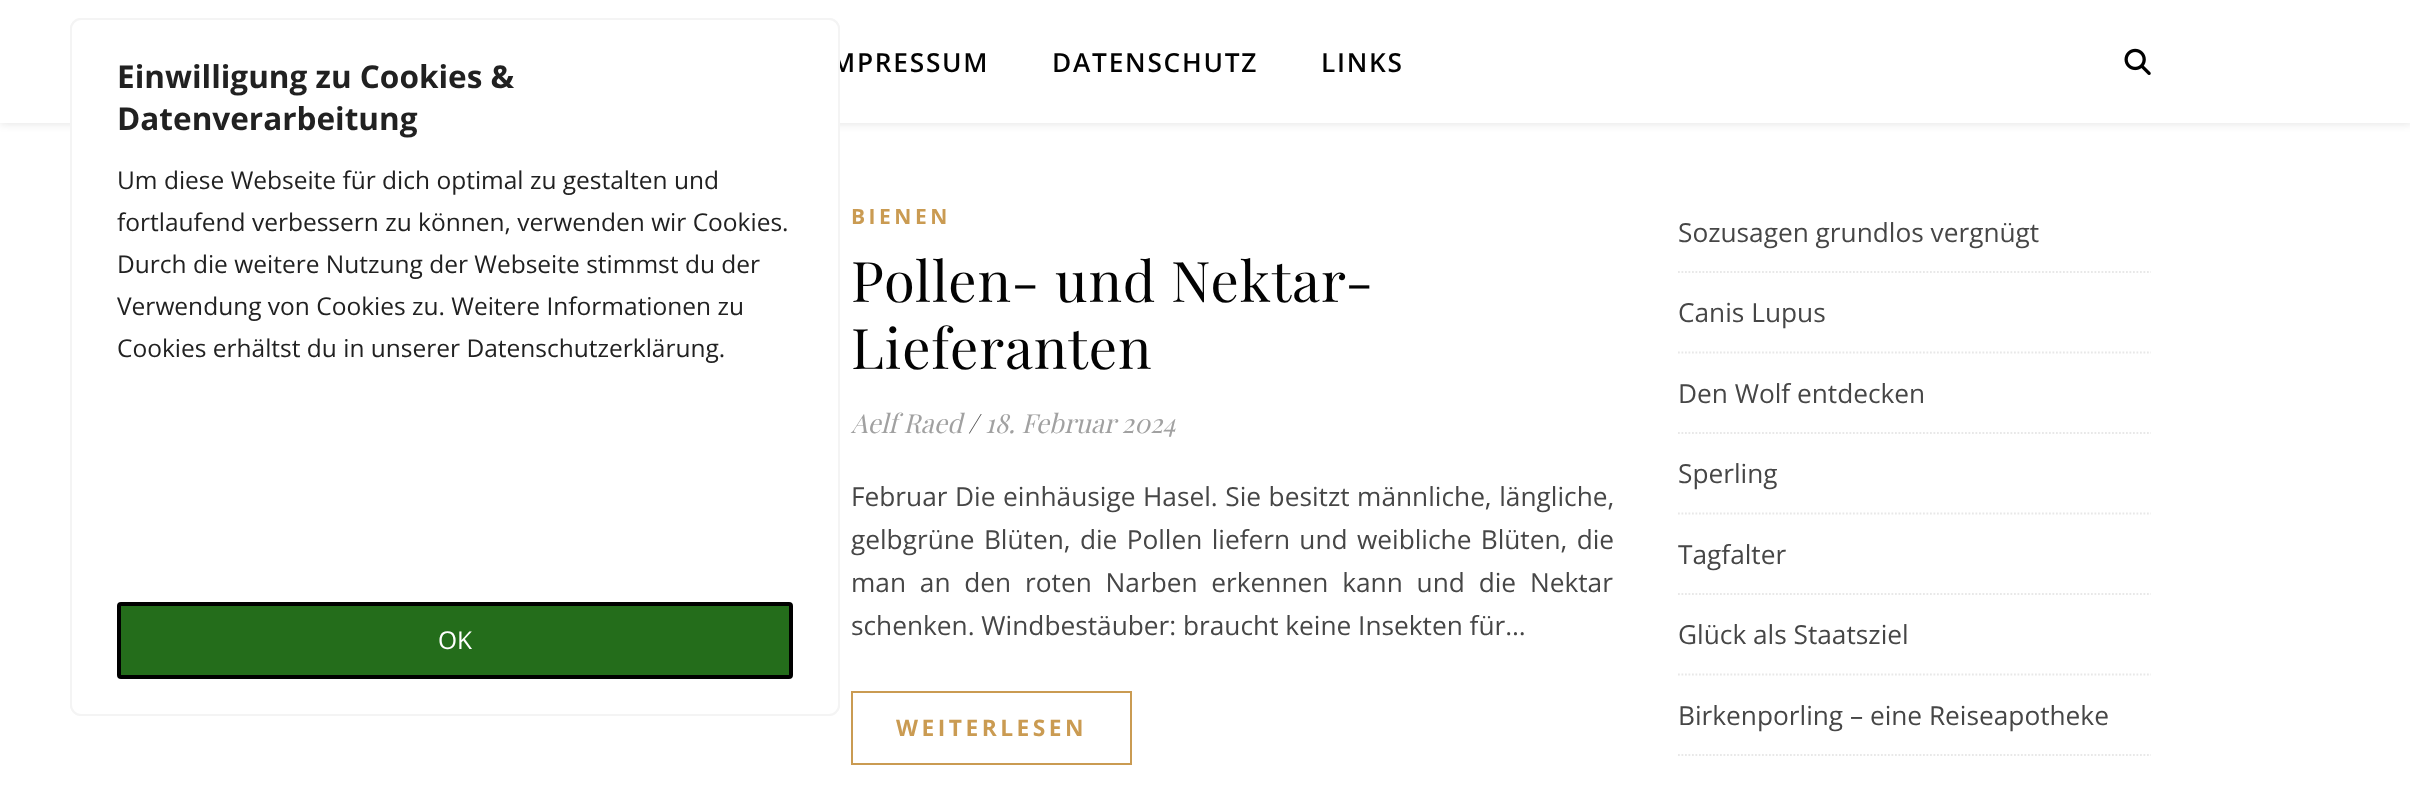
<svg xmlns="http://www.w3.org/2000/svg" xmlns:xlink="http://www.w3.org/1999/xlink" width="2410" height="785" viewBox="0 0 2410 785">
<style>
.cls-1{font:600 26.25px Open Sans;letter-spacing:1.75px;fill:#030303}
.cls-2{font:24.5px Open Sans;fill:#ffffff}
.cls-3{font:24.5px Open Sans;fill:#212121}
.cls-4{font:bold 31.5px Open Sans;fill:#212121}
.cls-5{font:bold 21px Open Sans;letter-spacing:3.5px;fill:#ca9b52}
.cls-6{font:56px Playfair Display;letter-spacing:0.9px;fill:#030303}
.cls-7{font:italic 26.25px Playfair Display;fill:#a1a1a1}
.cls-8{font:italic 26.25px Playfair Display;fill:#464646}
.cls-9{font:26.25px Open Sans;fill:#464646}
.cls-10{font:bold 22.75px Open Sans;letter-spacing:3.5px;fill:#ca9b52}
</style>
<defs>
<clipPath id="clip1"><rect x="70" y="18" width="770" height="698" rx="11"/></clipPath>
</defs>
<rect width="100%" height="100%" fill="#ffffff"/>
<rect fill="#000000" fill-opacity="0.1" filter="blur(4.5px)" x="0" y="2" width="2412" height="122"/>
<rect fill="#ffffff" x="0" y="0" width="2410" height="123"/>
<rect fill="none" stroke="#ca9b52" stroke-width="2" x="852" y="692" width="279" height="72"/>
<g clip-path="url(#clip1)">
<rect fill="#acabab" fill-opacity="0.3" filter="blur(9px)" x="70" y="16" width="770" height="698" rx="11"/>
</g>
<image xlink:href="image0.png" x="2124" y="48" width="27" height="27"/>
<path fill="none" stroke="#e8e8e8" stroke-width="1.8" stroke-dasharray="1.75 1.75" d="M1678 272H2151"/>
<path fill="none" stroke="#e8e8e8" stroke-width="1.8" stroke-dasharray="1.75 1.75" d="M1678 352.5H2151"/>
<path fill="none" stroke="#e8e8e8" stroke-width="1.8" stroke-dasharray="1.75 1.75" d="M1678 433H2151"/>
<path fill="none" stroke="#e8e8e8" stroke-width="1.8" stroke-dasharray="1.75 1.75" d="M1678 513.5H2151"/>
<path fill="none" stroke="#e8e8e8" stroke-width="1.8" stroke-dasharray="1.75 1.75" d="M1678 594H2151"/>
<path fill="none" stroke="#e8e8e8" stroke-width="1.8" stroke-dasharray="1.75 1.75" d="M1678 674.5H2151"/>
<path fill="none" stroke="#e8e8e8" stroke-width="1.8" stroke-dasharray="1.75 1.75" d="M1678 755H2151"/>
<text class="cls-1" x="831" y="72">MPRESSUM</text>
<rect fill="#ffffff" stroke="#f4f4f4" stroke-width="2" x="71" y="19" width="768" height="696" rx="10"/>
<rect fill="#246d1b" stroke="#000000" stroke-width="4" x="119" y="604" width="672" height="73" rx="2"/>
<text class="cls-2" x="438" y="649">OK</text>
<text class="cls-3" x="117" y="357">Cookies erhältst du in unserer Datenschutzerklärung.</text>
<text class="cls-3" x="117" y="315">Verwendung von Cookies zu. Weitere Informationen zu</text>
<text class="cls-3" x="117" y="273">Durch die weitere Nutzung der Webseite stimmst du der</text>
<text class="cls-3" x="117" y="231">fortlaufend verbessern zu können, verwenden wir Cookies.</text>
<text class="cls-3" x="117" y="189">Um diese Webseite für dich optimal zu gestalten und</text>
<text class="cls-4" x="117" y="130">Datenverarbeitung</text>
<text class="cls-4" x="117" y="88">Einwilligung zu Cookies &amp;</text>
<text class="cls-1" x="1052" y="72">DATENSCHUTZ</text>
<text class="cls-1" x="1321" y="72">LINKS</text>
<text class="cls-5" x="851" y="224">BIENEN</text>
<text class="cls-6"><tspan x="851" y="302">Pollen- und Nektar-</tspan><tspan x="851" y="369">Lieferanten</tspan></text>
<text class="cls-7" x="851" y="433">Aelf Raed</text>
<text class="cls-8" x="968" y="433">/</text>
<text class="cls-7" x="985" y="433">18. Februar 2024</text>
<text class="cls-9"><tspan x="851" y="506" word-spacing="0.75">Februar Die einhäusige Hasel. Sie besitzt männliche, längliche,</tspan><tspan x="851" y="549" word-spacing="2.5">gelbgrüne Blüten, die Pollen liefern und weibliche Blüten, die</tspan><tspan x="851" y="592" word-spacing="7">man an den roten Narben erkennen kann und die Nektar</tspan><tspan x="851" y="635">schenken. Windbestäuber: braucht keine Insekten für…</tspan></text>
<text class="cls-10" x="896" y="736">WEITERLESEN</text>
<text class="cls-9" x="1678" y="242">Sozusagen grundlos vergnügt</text>
<text class="cls-9" x="1678" y="322">Canis Lupus</text>
<text class="cls-9" x="1678" y="403">Den Wolf entdecken</text>
<text class="cls-9" x="1678" y="483">Sperling</text>
<text class="cls-9" x="1678" y="564">Tagfalter</text>
<text class="cls-9" x="1678" y="644">Glück als Staatsziel</text>
<text class="cls-9" x="1678" y="725">Birkenporling – eine Reiseapotheke</text>
</svg>
